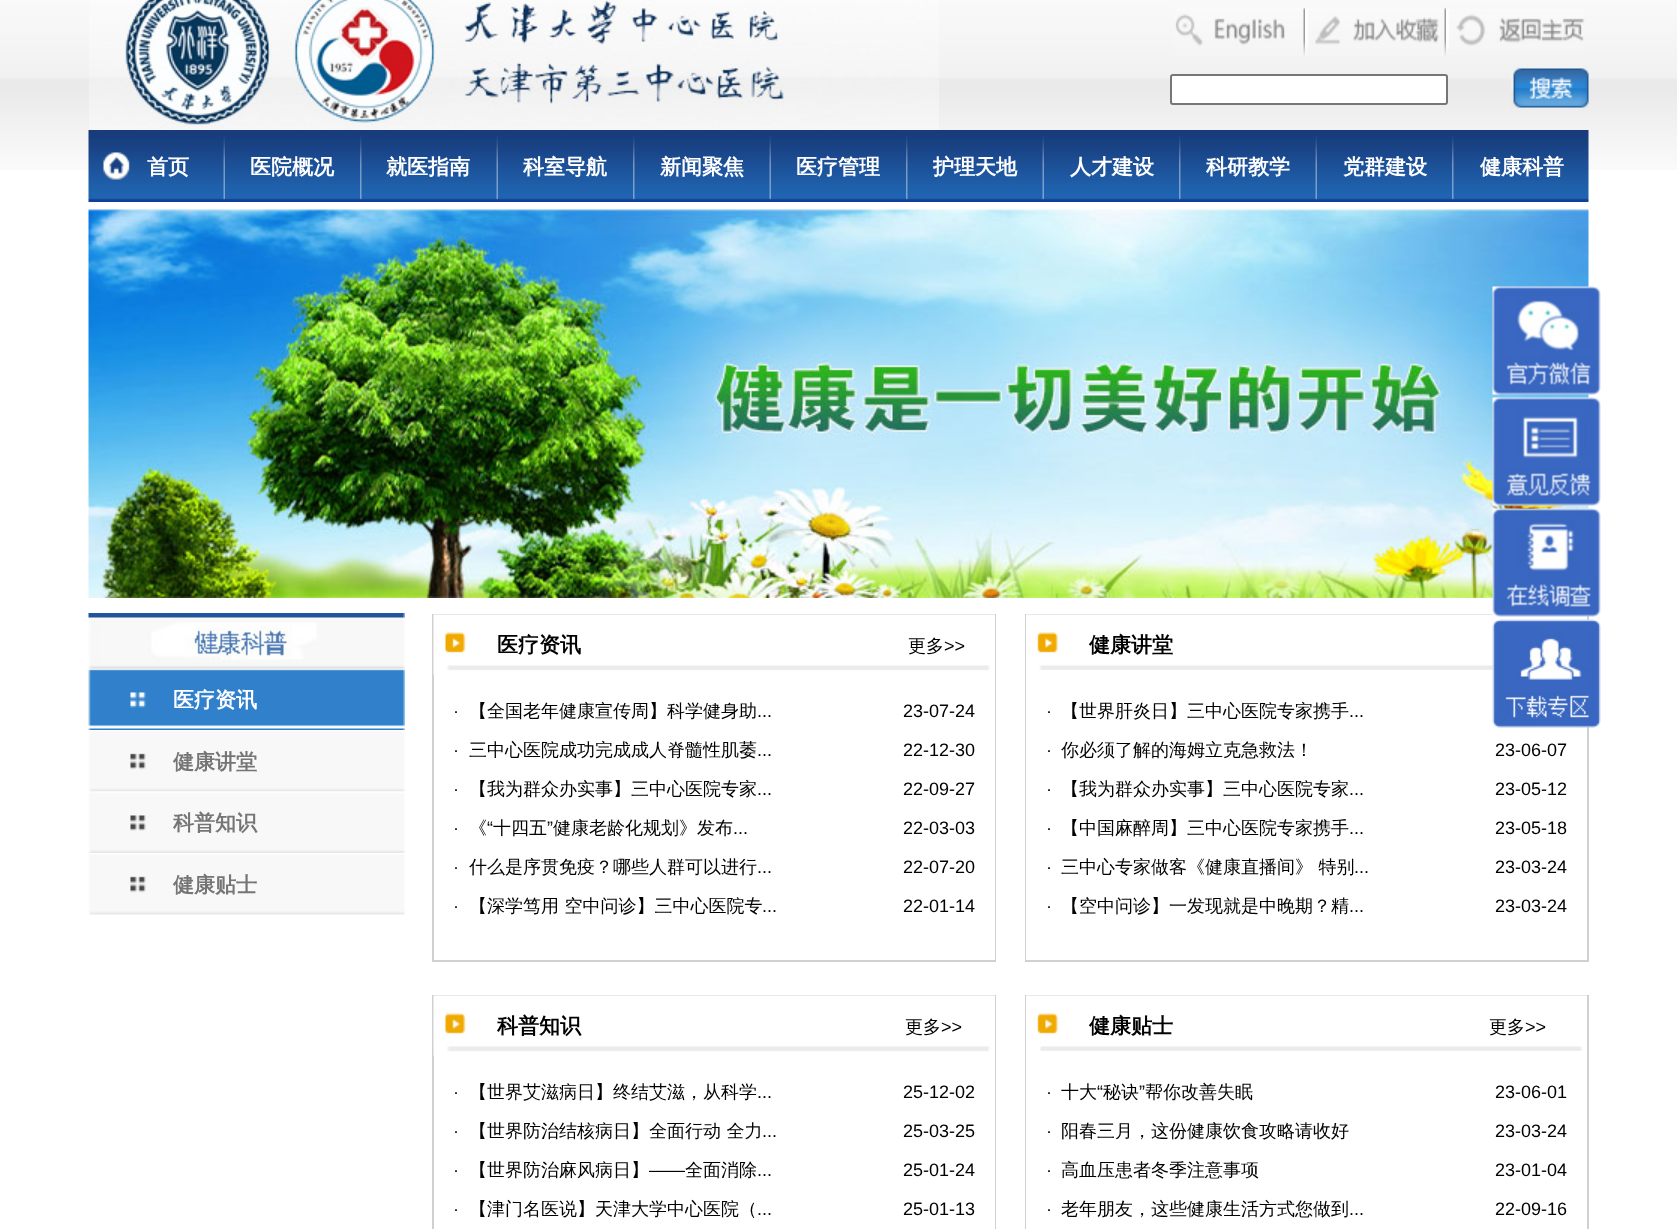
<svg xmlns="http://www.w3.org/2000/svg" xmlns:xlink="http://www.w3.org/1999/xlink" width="1677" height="1229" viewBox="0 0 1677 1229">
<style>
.cls-1{font:bold 21px WenQuanYi Zen Hei;fill:#ffffff}
.cls-2{font:bold 21px WenQuanYi Zen Hei;fill:#757575}
.cls-3{font:bold 21px WenQuanYi Zen Hei;fill:#000000}
.cls-4{font:500 18px WenQuanYi Zen Hei;fill:#000000}
.cls-5{font:18px Liberation Sans;fill:#000000}
</style>
<rect width="100%" height="100%" fill="#ffffff"/>
<image xlink:href="image0.png" x="0" y="0" width="1677" height="170"/>
<image xlink:href="image1.png" x="89" y="0" width="850" height="130"/>
<image xlink:href="image2.png" x="1175" y="7" width="130" height="49"/>
<image xlink:href="image3.png" x="1305" y="7" width="141" height="49"/>
<image xlink:href="image4.png" x="1446" y="9" width="139" height="41"/>
<rect fill="#ffffff" stroke="#767676" stroke-width="2" x="1171" y="75" width="276" height="29" rx="2"/>
<image xlink:href="image5.png" x="1511" y="68" width="78" height="40"/>
<image xlink:href="image6.png" x="88" y="130" width="1501" height="72"/>
<image xlink:href="image7.png" x="103" y="152" width="27" height="28"/>
<image xlink:href="image8.png" x="223" y="136" width="2" height="64"/>
<image xlink:href="image9.png" x="360" y="136" width="2" height="64"/>
<image xlink:href="image8.png" x="496" y="136" width="2" height="64"/>
<image xlink:href="image10.png" x="633" y="136" width="2" height="64"/>
<image xlink:href="image8.png" x="769" y="136" width="2" height="64"/>
<image xlink:href="image9.png" x="906" y="136" width="2" height="64"/>
<image xlink:href="image8.png" x="1042" y="136" width="2" height="64"/>
<image xlink:href="image9.png" x="1179" y="136" width="2" height="64"/>
<image xlink:href="image8.png" x="1315" y="136" width="2" height="64"/>
<image xlink:href="image9.png" x="1452" y="136" width="2" height="64"/>
<image xlink:href="image11.png" x="88" y="209" width="1501" height="389"/>
<image xlink:href="image12.png" x="1492" y="286" width="109" height="109"/>
<image xlink:href="image13.png" x="1492" y="397" width="109" height="109"/>
<rect fill="#d0d0d0" x="1025" y="614" width="564" height="348"/>
<image xlink:href="image21.png" x="1026" y="614" width="561" height="56"/>
<image xlink:href="image14.png" x="1492" y="508" width="109" height="109"/>
<rect fill="#ffffff" x="1026" y="670" width="561" height="290"/>
<image xlink:href="image15.png" x="1492" y="619" width="109" height="109"/>
<image xlink:href="image17.png" x="88" y="668" width="317" height="62"/>
<image xlink:href="image16.png" x="88" y="613" width="317" height="56"/>
<image xlink:href="image18.png" x="88" y="731" width="317" height="61"/>
<image xlink:href="image19.png" x="88" y="791" width="317" height="62"/>
<image xlink:href="image18.png" x="88" y="854" width="317" height="61"/>
<rect fill="#d0d0d0" x="432" y="614" width="564" height="348"/>
<rect fill="#ffffff" x="434" y="615" width="561" height="345"/>
<image xlink:href="image20.png" x="433" y="614" width="562" height="61"/>
<rect fill="#d0d0d0" x="432" y="995" width="564" height="234"/>
<rect fill="#ffffff" x="434" y="996" width="561" height="233"/>
<image xlink:href="image20.png" x="433" y="995" width="562" height="61"/>
<rect fill="#d0d0d0" x="1025" y="995" width="564" height="234"/>
<rect fill="#ffffff" x="1026" y="1051" width="561" height="178"/>
<image xlink:href="image22.png" x="1026" y="995" width="561" height="56"/>
<text class="cls-1" x="147" y="174">首页</text>
<text class="cls-1" x="250" y="174">医院概况</text>
<text class="cls-1" x="386" y="174">就医指南</text>
<text class="cls-1" x="523" y="174">科室导航</text>
<text class="cls-1" x="660" y="174">新闻聚焦</text>
<text class="cls-1" x="796" y="174">医疗管理</text>
<text class="cls-1" x="933" y="174">护理天地</text>
<text class="cls-1" x="1070" y="174">人才建设</text>
<text class="cls-1" x="1206" y="174">科研教学</text>
<text class="cls-1" x="1343" y="174">党群建设</text>
<text class="cls-1" x="1480" y="174">健康科普</text>
<text class="cls-1" x="173" y="707">医疗资讯</text>
<text class="cls-2" x="173" y="769">健康讲堂</text>
<text class="cls-2" x="173" y="830">科普知识</text>
<text class="cls-2" x="173" y="892">健康贴士</text>
<text class="cls-3" x="497" y="652">医疗资讯</text>
<text class="cls-4" x="908" y="652">更多</text>
<text class="cls-5" x="944" y="652">&gt;&gt;</text>
<text class="cls-5" x="453" y="717">·</text>
<text class="cls-4" x="469" y="717">【全国老年健康宣传周】科学健身助</text>
<text class="cls-5" x="757" y="717">...</text>
<text class="cls-5" x="903" y="717">23-07-24</text>
<text class="cls-5" x="453" y="756">·</text>
<text class="cls-4" x="469" y="756">三中心医院成功完成成人脊髓性肌萎</text>
<text class="cls-5" x="757" y="756">...</text>
<text class="cls-5" x="903" y="756">22-12-30</text>
<text class="cls-5" x="453" y="795">·</text>
<text class="cls-4" x="469" y="795">【我为群众办实事】三中心医院专家</text>
<text class="cls-5" x="757" y="795">...</text>
<text class="cls-5" x="903" y="795">22-09-27</text>
<text class="cls-5" x="453" y="834">·</text>
<text class="cls-4" x="469" y="834">《</text>
<text class="cls-5" x="487" y="834">“</text>
<text class="cls-4" x="493" y="834">十四五</text>
<text class="cls-5" x="547" y="834">”</text>
<text class="cls-4" x="553" y="834">健康老龄化规划》发布</text>
<text class="cls-5" x="733" y="834">...</text>
<text class="cls-5" x="903" y="834">22-03-03</text>
<text class="cls-5" x="453" y="873">·</text>
<text class="cls-4" x="469" y="873">什么是序贯免疫？哪些人群可以进行</text>
<text class="cls-5" x="757" y="873">...</text>
<text class="cls-5" x="903" y="873">22-07-20</text>
<text class="cls-5" x="453" y="912">·</text>
<text class="cls-4" x="469" y="912">【深学笃用 空中问诊】三中心医院专</text>
<text class="cls-5" x="762" y="912">...</text>
<text class="cls-5" x="903" y="912">22-01-14</text>
<text class="cls-3" x="1089" y="652">健康讲堂</text>
<text class="cls-5" x="1046" y="717">·</text>
<text class="cls-4" x="1061" y="717">【世界肝炎日】三中心医院专家携手</text>
<text class="cls-5" x="1349" y="717">...</text>
<text class="cls-5" x="1046" y="756">·</text>
<text class="cls-4" x="1061" y="756">你必须了解的海姆立克急救法！</text>
<text class="cls-5" x="1495" y="756">23-06-07</text>
<text class="cls-5" x="1046" y="795">·</text>
<text class="cls-4" x="1061" y="795">【我为群众办实事】三中心医院专家</text>
<text class="cls-5" x="1349" y="795">...</text>
<text class="cls-5" x="1495" y="795">23-05-12</text>
<text class="cls-5" x="1046" y="834">·</text>
<text class="cls-4" x="1061" y="834">【中国麻醉周】三中心医院专家携手</text>
<text class="cls-5" x="1349" y="834">...</text>
<text class="cls-5" x="1495" y="834">23-05-18</text>
<text class="cls-5" x="1046" y="873">·</text>
<text class="cls-4" x="1061" y="873">三中心专家做客《健康直播间》 特别</text>
<text class="cls-5" x="1354" y="873">...</text>
<text class="cls-5" x="1495" y="873">23-03-24</text>
<text class="cls-5" x="1046" y="912">·</text>
<text class="cls-4" x="1061" y="912">【空中问诊】一发现就是中晚期？精</text>
<text class="cls-5" x="1349" y="912">...</text>
<text class="cls-5" x="1495" y="912">23-03-24</text>
<text class="cls-3" x="497" y="1033">科普知识</text>
<text class="cls-4" x="905" y="1033">更多</text>
<text class="cls-5" x="941" y="1033">&gt;&gt;</text>
<text class="cls-5" x="453" y="1098">·</text>
<text class="cls-4" x="469" y="1098">【世界艾滋病日】终结艾滋，从科学</text>
<text class="cls-5" x="757" y="1098">...</text>
<text class="cls-5" x="903" y="1098">25-12-02</text>
<text class="cls-5" x="453" y="1137">·</text>
<text class="cls-4" x="469" y="1137">【世界防治结核病日】全面行动 全力</text>
<text class="cls-5" x="762" y="1137">...</text>
<text class="cls-5" x="903" y="1137">25-03-25</text>
<text class="cls-5" x="453" y="1176">·</text>
<text class="cls-4" x="469" y="1176">【世界防治麻风病日】</text>
<text class="cls-5" x="649" y="1176">——</text>
<text class="cls-4" x="685" y="1176">全面消除</text>
<text class="cls-5" x="757" y="1176">...</text>
<text class="cls-5" x="903" y="1176">25-01-24</text>
<text class="cls-5" x="453" y="1215">·</text>
<text class="cls-4" x="469" y="1215">【津门名医说】天津大学中心医院（</text>
<text class="cls-5" x="757" y="1215">...</text>
<text class="cls-5" x="903" y="1215">25-01-13</text>
<text class="cls-3" x="1089" y="1033">健康贴士</text>
<text class="cls-4" x="1489" y="1033">更多</text>
<text class="cls-5" x="1525" y="1033">&gt;&gt;</text>
<text class="cls-5" x="1046" y="1098">·</text>
<text class="cls-4" x="1061" y="1098">十大</text>
<text class="cls-5" x="1097" y="1098">“</text>
<text class="cls-4" x="1103" y="1098">秘诀</text>
<text class="cls-5" x="1139" y="1098">”</text>
<text class="cls-4" x="1145" y="1098">帮你改善失眠</text>
<text class="cls-5" x="1495" y="1098">23-06-01</text>
<text class="cls-5" x="1046" y="1137">·</text>
<text class="cls-4" x="1061" y="1137">阳春三月，这份健康饮食攻略请收好</text>
<text class="cls-5" x="1495" y="1137">23-03-24</text>
<text class="cls-5" x="1046" y="1176">·</text>
<text class="cls-4" x="1061" y="1176">高血压患者冬季注意事项</text>
<text class="cls-5" x="1495" y="1176">23-01-04</text>
<text class="cls-5" x="1046" y="1215">·</text>
<text class="cls-4" x="1061" y="1215">老年朋友，这些健康生活方式您做到</text>
<text class="cls-5" x="1349" y="1215">...</text>
<text class="cls-5" x="1495" y="1215">22-09-16</text>
</svg>
